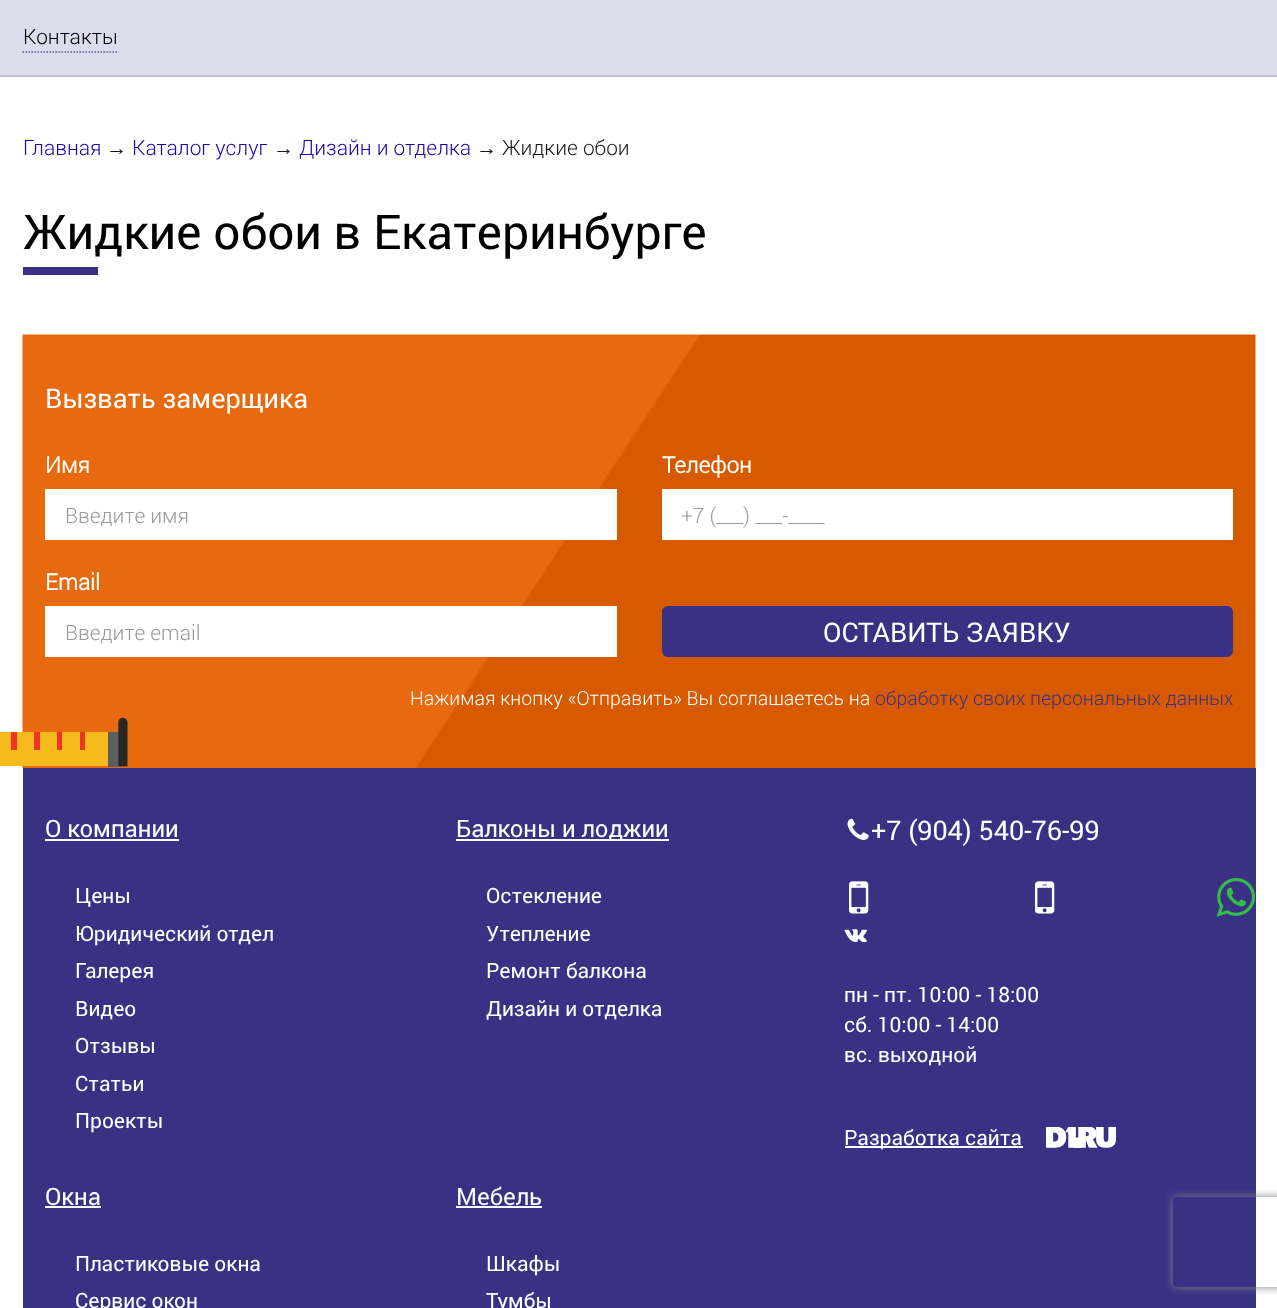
<svg xmlns="http://www.w3.org/2000/svg" xmlns:xlink="http://www.w3.org/1999/xlink" width="1277" height="1308" viewBox="0 0 1277 1308">
<style>
.cls-1{font:300 21px Roboto;fill:#000000}
.cls-2{font:300 21px Roboto;fill:#2101ad}
.cls-3{font:21px Liberation Sans;fill:#191919}
.cls-4{font:300 21px Roboto;fill:#191919}
.cls-5{font:48px Roboto;fill:#000000}
.cls-6{font:27px Roboto;fill:#ffffff}
.cls-7{font:bold 22.5px Roboto;fill:#ffffff}
.cls-8{font:300 21px Roboto;fill:#999999}
.cls-9{font:300 19.5px Roboto;fill:#ffffff}
.cls-10{font:300 19.5px Roboto;fill:#3a3185}
.cls-11{font:24px Roboto;fill:#ffffff}
.cls-12{font:21px Roboto;fill:#ffffff}
</style>
<defs>
<clipPath id="clip1"><path d="M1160 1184H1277V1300H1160ZM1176 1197H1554C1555.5 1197 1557 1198.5 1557 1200V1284C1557 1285.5 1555.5 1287 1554 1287H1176C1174.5 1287 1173 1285.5 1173 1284V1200C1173 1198.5 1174.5 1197 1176 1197Z" clip-rule="evenodd"/></clipPath>
</defs>
<rect width="100%" height="100%" fill="#ffffff"/>
<rect fill="#dcdced" x="0" y="0" width="1277" height="75"/>
<rect fill="#c1c1d3" x="0" y="75" width="1277" height="2"/>
<path fill="none" stroke="#5f599d" stroke-width="1.5" stroke-dasharray="1.5 1.5" d="M22.5 52H117"/>
<rect fill="#3a3185" x="23" y="267" width="75" height="8"/>
<image xlink:href="image0.png" x="22" y="334" width="1234" height="434"/>
<rect fill="#ffffff" x="45" y="489" width="572" height="51"/>
<rect fill="#ffffff" x="662" y="489" width="571" height="51"/>
<rect fill="#ffffff" x="45" y="606" width="572" height="51"/>
<rect fill="#3a3185" stroke="#3a3185" stroke-width="3" x="663.5" y="607.5" width="568" height="48" rx="4.5"/>
<image xlink:href="image1.png" x="0" y="717" width="128" height="50"/>
<rect fill="#3a3185" x="23" y="768" width="1233" height="540"/>
<rect fill="#ffffff" x="45" y="839" width="134" height="2"/>
<rect fill="#ffffff" x="456" y="839" width="213" height="2"/>
<rect fill="#ffffff" x="45" y="1206" width="56" height="2"/>
<rect fill="#ffffff" x="456" y="1206" width="86" height="2"/>
<image xlink:href="image2.png" x="847" y="818" width="22" height="22"/>
<image xlink:href="image3.png" x="849" y="881" width="20" height="33"/>
<image xlink:href="image3.png" x="1035" y="881" width="20" height="33"/>
<image xlink:href="image4.png" x="1216" y="878" width="40" height="39"/>
<image xlink:href="image5.png" x="844" y="929" width="23" height="13"/>
<rect fill="#ffffff" x="845" y="1146" width="178" height="2"/>
<image xlink:href="image6.png" x="1046" y="1127" width="70" height="21"/>
<g clip-path="url(#clip1)">
<rect fill="#808080" filter="blur(4px)" x="1173" y="1197" width="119" height="90" rx="3"/>
</g>
<text class="cls-1" x="23" y="44">Контакты</text>
<text class="cls-2" x="23" y="155">Главная</text>
<text class="cls-3" x="106" y="155">→</text>
<text class="cls-2" x="132" y="155">Каталог услуг</text>
<text class="cls-3" x="273" y="155">→</text>
<text class="cls-2" x="299" y="155">Дизайн и отделка</text>
<text class="cls-3" x="476" y="155">→</text>
<text class="cls-4" x="502" y="155">Жидкие обои</text>
<text class="cls-5" x="23" y="249">Жидкие обои в Екатеринбурге</text>
<text class="cls-6" x="45" y="408">Вызвать замерщика</text>
<text class="cls-7" x="45" y="473">Имя</text>
<text class="cls-8" x="65" y="523">Введите имя</text>
<text class="cls-7" x="662" y="473">Телефон</text>
<text class="cls-8" x="681" y="523">+7 (___) ___-____</text>
<text class="cls-7" x="45" y="590">Email</text>
<text class="cls-8" x="65" y="640">Введите email</text>
<text class="cls-6" x="823" y="642">ОСТАВИТЬ ЗАЯВКУ</text>
<text class="cls-9" x="410" y="705">Нажимая кнопку «Отправить» Вы соглашаетесь на</text>
<text class="cls-10" x="875" y="705">обработку своих персональных данных</text>
<text class="cls-11" x="45" y="837">О компании</text>
<text class="cls-12"><tspan x="75" y="903">Цены</tspan><tspan x="75" y="941">Юридический отдел</tspan><tspan x="75" y="978">Галерея</tspan><tspan x="75" y="1016">Видео</tspan><tspan x="75" y="1053">Отзывы</tspan><tspan x="75" y="1091">Статьи</tspan><tspan x="75" y="1128">Проекты</tspan></text>
<text class="cls-11" x="456" y="837">Балконы и лоджии</text>
<text class="cls-12"><tspan x="486" y="903">Остекление</tspan><tspan x="486" y="941">Утепление</tspan><tspan x="486" y="978">Ремонт балкона</tspan><tspan x="486" y="1016">Дизайн и отделка</tspan></text>
<text class="cls-11" x="45" y="1205">Окна</text>
<text class="cls-12"><tspan x="75" y="1271">Пластиковые окна</tspan><tspan x="75" y="1308">Сервис окон</tspan></text>
<text class="cls-11" x="456" y="1205">Мебель</text>
<text class="cls-12"><tspan x="486" y="1271">Шкафы</tspan><tspan x="486" y="1308">Тумбы</tspan></text>
<text class="cls-6" x="871" y="840">+7 (904) 540-76-99</text>
<text class="cls-12"><tspan x="844" y="1002">пн - пт. 10:00 - 18:00</tspan><tspan x="844" y="1032">сб. 10:00 - 14:00</tspan><tspan x="844" y="1062">вс. выходной</tspan></text>
<text class="cls-12" x="844" y="1145">Разработка сайта</text>
</svg>
